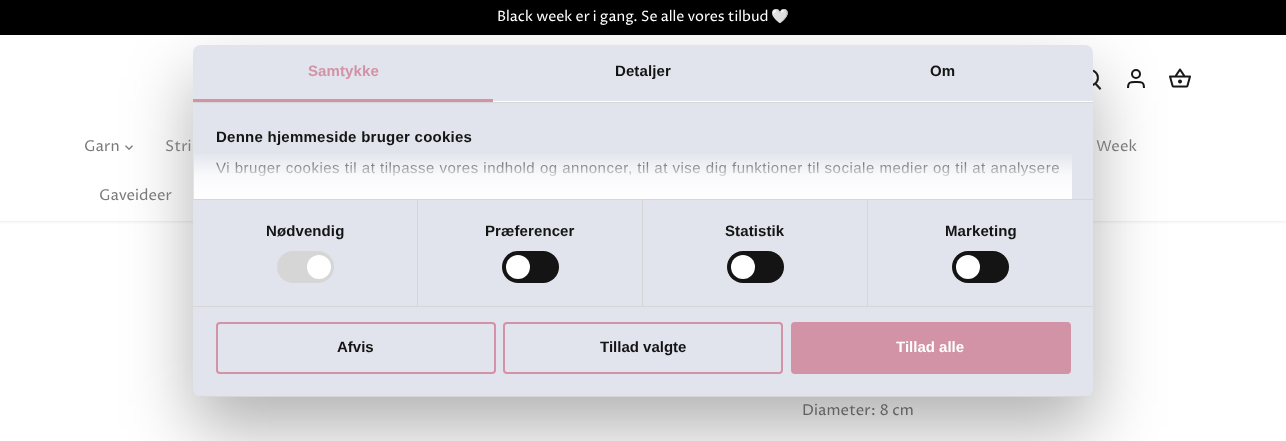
<svg xmlns="http://www.w3.org/2000/svg" xmlns:xlink="http://www.w3.org/1999/xlink" width="1286" height="441" viewBox="0 0 1286 441">
<style>
.cls-1{font:14.25px Proza Libre;fill:#ffffff}
.cls-2{font:14.25px Noto Color Emoji;fill:#ffffff}
.cls-3{font:15px Proza Libre;fill:#787a7c}
.cls-4{font:15px Proza Libre;fill:#616161}
.cls-5{font:bold 15px Liberation Sans;letter-spacing:0.1px;fill:#d193a5}
.cls-6{font:bold 15px Liberation Sans;letter-spacing:0.1px;fill:#141414}
.cls-7{font:bold 15px Liberation Sans;letter-spacing:0.25px;fill:#141414}
.cls-8{font:15px Liberation Sans;letter-spacing:0.5px;fill:#141414}
.cls-9{font:bold 15px Liberation Sans;fill:#141414}
.cls-10{font:bold 15px Liberation Sans;fill:#ffffff}
</style>
<defs>
<clipPath id="clip1"><rect x="193" y="45" width="900" height="352" rx="8"/></clipPath>
<linearGradient id="g1" gradientUnits="userSpaceOnUse" x1="633" y1="199" x2="633" y2="151"><stop offset="0" stop-color="#ffffff"/><stop offset="0.5" stop-color="#ffffff" stop-opacity="0.8"/><stop offset="1" stop-color="#ffffff" stop-opacity="0"/></linearGradient>
</defs>
<rect width="100%" height="100%" fill="#ffffff"/>
<rect fill="#000000" fill-opacity="0.08" filter="blur(1.5px)" x="-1" y="34" width="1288" height="188"/>
<rect fill="#000000" x="0" y="0" width="1286" height="35"/>
<rect fill="#ffffff" x="0" y="35" width="1286" height="186"/>
<image xlink:href="image0.png" x="1093" y="69" width="9" height="21"/>
<circle fill="none" stroke="#191817" stroke-width="2" cx="1136" cy="74" r="4"/>
<path fill="none" stroke="#191817" stroke-width="2" d="M1144 88C1144 81.5 1141.5 82 1136 82C1130.5 82 1128 81.5 1128 88"/>
<image xlink:href="image1.png" x="1169" y="68" width="22" height="20"/>
<image xlink:href="image2.png" x="125" y="145" width="8" height="5"/>
<rect fill="#000000" fill-opacity="0.3" filter="blur(34px)" x="193" y="77" width="900" height="352" rx="8"/>
<rect fill="#e2e4ed" x="193" y="45" width="900" height="352" rx="8"/>
<rect fill="#d6d6d6" x="193" y="102" width="900" height="1"/>
<rect fill="#d193a5" x="193" y="99" width="300" height="3"/>
<rect fill="#ffffff" x="493" y="101" width="600" height="1"/>
<rect fill="#d6d6d6" x="193" y="199" width="900" height="1"/>
<rect fill="#d6d6d6" x="193" y="306" width="900" height="1"/>
<rect fill="#d6d6d6" x="417" y="200" width="1" height="106"/>
<rect fill="#d6d6d6" x="277" y="251" width="57" height="32" rx="16"/>
<circle fill="#ffffff" cx="319" cy="267" r="12"/>
<rect fill="#d6d6d6" x="642" y="200" width="1" height="106"/>
<rect fill="#141414" x="502" y="251" width="57" height="32" rx="16"/>
<circle fill="#ffffff" cx="518" cy="267" r="12"/>
<rect fill="#d6d6d6" x="867" y="200" width="1" height="106"/>
<rect fill="#141414" x="727" y="251" width="57" height="32" rx="16"/>
<circle fill="#ffffff" cx="743" cy="267" r="12"/>
<rect fill="#141414" x="952" y="251" width="57" height="32" rx="16"/>
<circle fill="#ffffff" cx="968" cy="267" r="12"/>
<g clip-path="url(#clip1)">
<rect fill="#d6d6d6" x="193" y="396" width="900" height="1"/>
</g>
<rect fill="none" stroke="#d193a5" stroke-width="2" x="217" y="323" width="278" height="50" rx="3"/>
<rect fill="none" stroke="#d193a5" stroke-width="2" x="504" y="323" width="278" height="50" rx="3"/>
<rect fill="#d193a5" stroke="#d193a5" stroke-width="2" x="792" y="323" width="278" height="50" rx="3"/>
<text class="cls-1" x="497" y="21">Black week er i gang. Se alle vores tilbud</text>
<text class="cls-2" x="771" y="21">🤍</text>
<text class="cls-3" x="84" y="151">Garn</text>
<text class="cls-3" x="165" y="151">Stri</text>
<text class="cls-3" x="1096" y="151">Week</text>
<text class="cls-3" x="99" y="200">Gaveideer</text>
<text class="cls-4" x="802" y="415">Diameter: 8 cm</text>
<text class="cls-5" x="308" y="76">Samtykke</text>
<text class="cls-6" x="615" y="76">Detaljer</text>
<text class="cls-6" x="930" y="76">Om</text>
<text class="cls-7" x="216" y="142">Denne hjemmeside bruger cookies</text>
<text class="cls-8" x="216" y="173">Vi bruger cookies til at tilpasse vores indhold og annoncer, til at vise dig funktioner til sociale medier og til at analysere</text>
<rect fill="url(#g1)" x="194" y="154" width="878" height="45"/>
<text class="cls-6" x="266" y="236">Nødvendig</text>
<text class="cls-6" x="485" y="236">Præferencer</text>
<text class="cls-6" x="725" y="236">Statistik</text>
<text class="cls-6" x="945" y="236">Marketing</text>
<text class="cls-9" x="337" y="352">Afvis</text>
<text class="cls-9" x="600" y="352">Tillad valgte</text>
<text class="cls-10" x="896" y="352">Tillad alle</text>
</svg>
